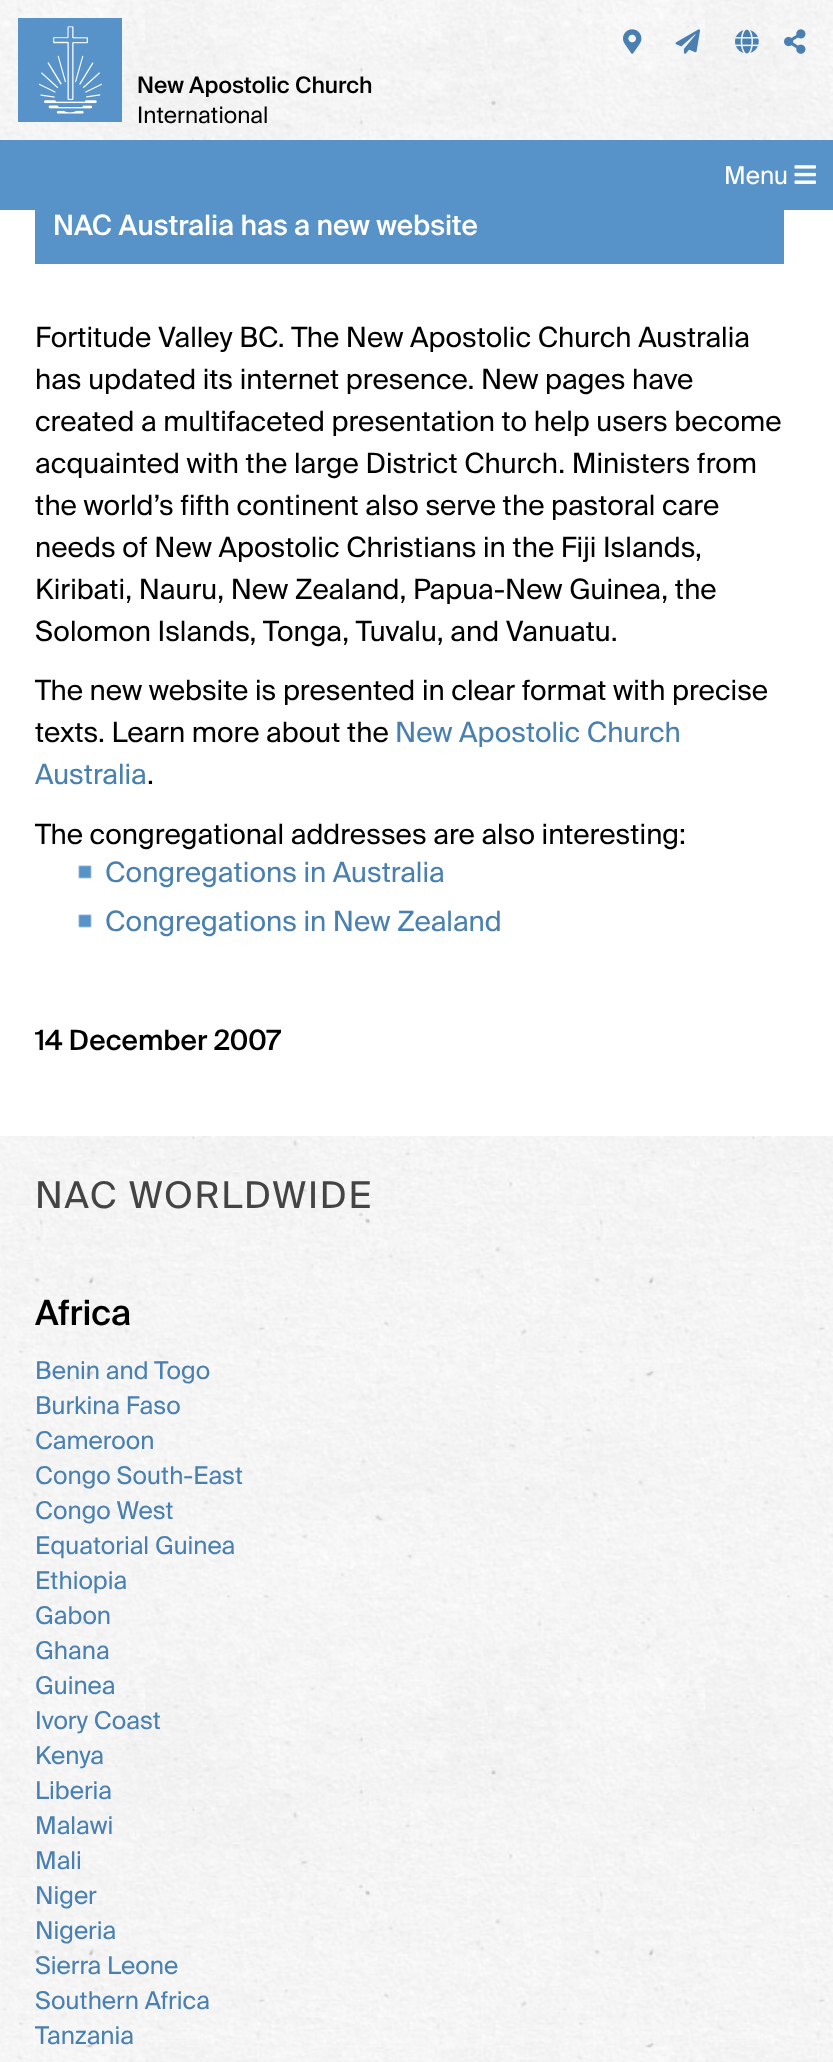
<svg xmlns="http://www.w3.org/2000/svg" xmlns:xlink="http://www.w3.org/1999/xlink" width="833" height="2062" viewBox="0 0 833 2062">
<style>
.cls-1{font:500 22.75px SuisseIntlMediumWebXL;fill:#000000}
.cls-2{font:22.75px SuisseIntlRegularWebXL;fill:#000000}
.cls-3{font:24.5px SuisseIntlRegularWebXL;fill:#ffffff}
.cls-4{font:500 28px SuisseIntlMediumWebXL;fill:#ffffff}
.cls-5{font:28px SuisseIntlRegularWebXL;fill:#000000}
.cls-6{font:28px SuisseIntlRegularWebXL;fill:#4980b1}
.cls-7{font:500 28px SuisseIntlMediumWebXL;fill:#000000}
.cls-8{font:36.75px SuisseIntlRegularWebXL;letter-spacing:1.8px;fill:#444444}
.cls-9{font:500 35px SuisseIntlMediumWebXL;fill:#000000}
.cls-10{font:24.5px SuisseIntlRegularWebXL;fill:#4980b1}
</style>
<rect width="100%" height="100%" fill="#ffffff"/>
<image xlink:href="image0.png" x="0" y="0" width="833" height="2062"/>
<image xlink:href="image1.png" x="0" y="0" width="833" height="140"/>
<image xlink:href="image2.png" x="18" y="18" width="104" height="104"/>
<image xlink:href="image3.png" x="623" y="29" width="19" height="25"/>
<image xlink:href="image4.png" x="675" y="29" width="25" height="25"/>
<image xlink:href="image5.png" x="735" y="29" width="24" height="25"/>
<image xlink:href="image6.png" x="784" y="29" width="22" height="25"/>
<rect fill="#5793c9" x="0" y="140" width="833" height="70"/>
<image xlink:href="image7.png" x="794" y="165" width="22" height="19"/>
<rect fill="#ffffff" x="0" y="210" width="833" height="926"/>
<rect fill="#5793c9" x="35" y="210" width="749" height="54"/>
<image xlink:href="image8.png" x="78" y="865" width="14" height="14"/>
<image xlink:href="image8.png" x="78" y="914" width="14" height="14"/>
<text class="cls-1" x="137" y="93">New Apostolic Church</text>
<text class="cls-2" x="137" y="123">International</text>
<text class="cls-3" x="724" y="184">Menu</text>
<text class="cls-4" x="53" y="235">NAC Australia has a new website</text>
<text class="cls-5"><tspan x="35" y="347">Fortitude Valley BC. The New Apostolic Church Australia</tspan><tspan x="35" y="389">has updated its internet presence. New pages have</tspan><tspan x="35" y="431">created a multifaceted presentation to help users become</tspan><tspan x="35" y="473">acquainted with the large District Church. Ministers from</tspan><tspan x="35" y="515">the world’s fifth continent also serve the pastoral care</tspan><tspan x="35" y="557">needs of New Apostolic Christians in the Fiji Islands,</tspan><tspan x="35" y="599">Kiribati, Nauru, New Zealand, Papua-New Guinea, the</tspan><tspan x="35" y="641">Solomon Islands, Tonga, Tuvalu, and Vanuatu.</tspan></text>
<text class="cls-5"><tspan x="35" y="700">The new website is presented in clear format with precise</tspan><tspan x="35" y="742">texts. Learn more about the</tspan></text>
<text class="cls-6" x="395" y="742">New Apostolic Church</text>
<text class="cls-6" x="35" y="784">Australia</text>
<text class="cls-5" x="147" y="784">.</text>
<text class="cls-5" x="35" y="844">The congregational addresses are also interesting:</text>
<text class="cls-6"><tspan x="105" y="882">Congregations in Australia</tspan><tspan x="105" y="931">Congregations in New Zealand</tspan></text>
<text class="cls-7" x="35" y="1050">14 December 2007</text>
<text class="cls-8" x="35" y="1208">NAC WORLDWIDE</text>
<text class="cls-9" x="35" y="1325">Africa</text>
<text class="cls-10"><tspan x="35" y="1379">Benin and Togo</tspan><tspan x="35" y="1414">Burkina Faso</tspan><tspan x="35" y="1449">Cameroon</tspan><tspan x="35" y="1484">Congo South-East</tspan><tspan x="35" y="1519">Congo West</tspan><tspan x="35" y="1554">Equatorial Guinea</tspan><tspan x="35" y="1589">Ethiopia</tspan><tspan x="35" y="1624">Gabon</tspan><tspan x="35" y="1659">Ghana</tspan><tspan x="35" y="1694">Guinea</tspan><tspan x="35" y="1729">Ivory Coast</tspan><tspan x="35" y="1764">Kenya</tspan><tspan x="35" y="1799">Liberia</tspan><tspan x="35" y="1834">Malawi</tspan><tspan x="35" y="1869">Mali</tspan><tspan x="35" y="1904">Niger</tspan><tspan x="35" y="1939">Nigeria</tspan><tspan x="35" y="1974">Sierra Leone</tspan><tspan x="35" y="2009">Southern Africa</tspan><tspan x="35" y="2044">Tanzania</tspan></text>
</svg>
